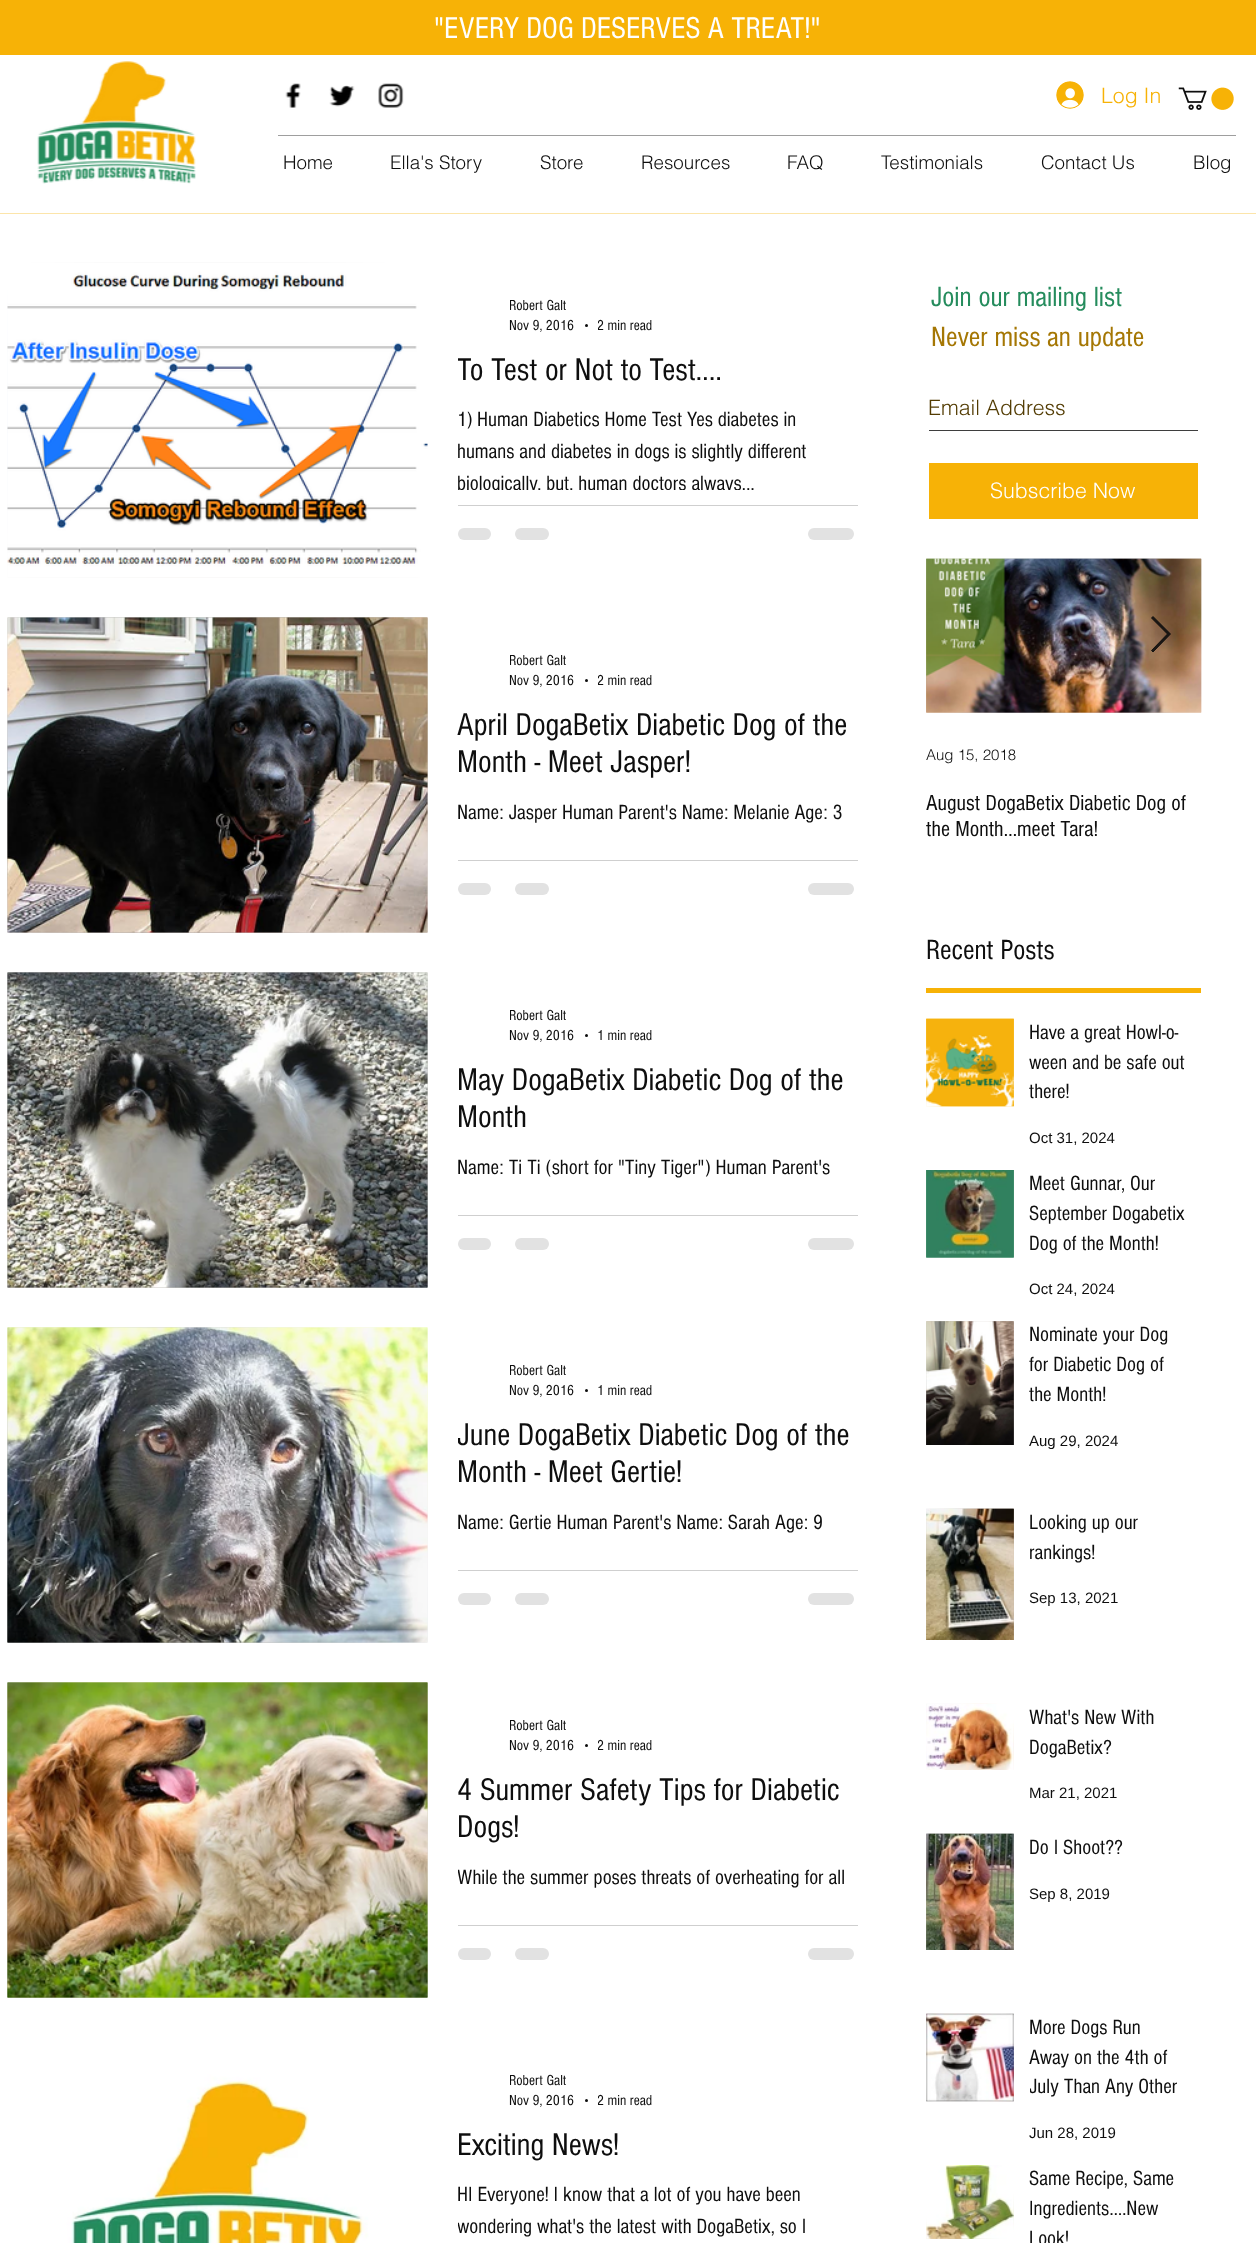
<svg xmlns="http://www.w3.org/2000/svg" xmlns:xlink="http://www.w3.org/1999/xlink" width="1256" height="2243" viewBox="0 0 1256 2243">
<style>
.cls-1{font:31.25px 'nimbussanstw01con';fill:#ffffff}
.cls-2{font:300 21.25px helvetica;fill:#f7b206}
.cls-3{font:300 18.75px helvetica;fill:#0e0e0e}
.cls-4{font:15px 'nimbussanstw01con';fill:#0e0e0e}
.cls-5{font:32.5px 'nimbussanstw01con';fill:#0e0e0e}
.cls-6{font:21.25px 'nimbussanstw01con';fill:#0e0e0e}
.cls-7{font:28.75px 'nimbussanstw01con';fill:#258c5d}
.cls-8{font:28.75px 'nimbussanstw01con';fill:#a57704}
.cls-9{font:300 21.25px helvetica;fill:#523b02}
.cls-10{font:300 21.25px helvetica;fill:#ffffff}
.cls-11{font:300 15px helvetica;fill:#0e0e0e}
.cls-12{font:22.5px 'nimbussanstw01con';fill:#0e0e0e}
.cls-13{font:28.75px 'nimbussanstw01con';fill:#0e0e0e}
.cls-14{font:15px Liberation Sans;fill:#0e0e0e}
</style>
<defs>
<clipPath id="clip1"><rect x="510" y="298" width="56" height="16"/></clipPath>
<clipPath id="clip2"><rect x="598" y="318" width="55" height="16"/></clipPath>
<clipPath id="clip3"><rect x="458" y="351" width="400" height="38"/></clipPath>
<clipPath id="clip4"><rect x="458" y="404" width="400" height="86"/></clipPath>
<clipPath id="clip5"><rect x="510" y="653" width="56" height="16"/></clipPath>
<clipPath id="clip6"><rect x="598" y="673" width="55" height="16"/></clipPath>
<clipPath id="clip7"><rect x="510" y="1008" width="56" height="16"/></clipPath>
<clipPath id="clip8"><rect x="510" y="1363" width="56" height="16"/></clipPath>
<clipPath id="clip9"><rect x="458" y="1416" width="400" height="75"/></clipPath>
<clipPath id="clip10"><rect x="510" y="1718" width="56" height="16"/></clipPath>
<clipPath id="clip11"><rect x="598" y="1738" width="55" height="16"/></clipPath>
<clipPath id="clip12"><rect x="458" y="1861" width="400" height="49"/></clipPath>
<clipPath id="clip13"><rect x="510" y="2073" width="56" height="16"/></clipPath>
<clipPath id="clip14"><rect x="598" y="2093" width="55" height="16"/></clipPath>
<clipPath id="clip15"><rect x="458" y="2179" width="400" height="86"/></clipPath>
<clipPath id="clip16"><rect x="1030" y="2013" width="156" height="88"/></clipPath>
</defs>
<rect width="100%" height="100%" fill="#ffffff"/>
<rect fill="#f7b206" x="0" y="0" width="1256" height="55"/>
<image xlink:href="image0.png" x="37" y="61" width="159" height="123"/>
<image xlink:href="image1.png" x="285" y="83" width="16" height="25"/>
<image xlink:href="image2.png" x="329" y="85" width="26" height="22"/>
<image xlink:href="image3.png" x="378" y="83" width="26" height="25"/>
<image xlink:href="image4.png" x="1056" y="81" width="28" height="28"/>
<image xlink:href="image5.png" x="1178" y="87" width="56" height="23"/>
<rect fill="#9e9e9e" x="278" y="135" width="958" height="1"/>
<rect fill="#fce5aa" x="0" y="213" width="1256" height="1"/>
<image xlink:href="image6.png" x="7" y="262" width="413" height="316"/>
<image xlink:href="image7.png" x="7" y="263" width="421" height="314"/>
<circle fill="#0e0e0e" cx="586.5" cy="325.5" r="1.5"/>
<rect fill="#cfcfcf" x="458" y="505" width="400" height="1"/>
<rect fill="#e2e2e2" x="458" y="528" width="33" height="12" rx="6"/>
<rect fill="#e2e2e2" x="515" y="528" width="34" height="12" rx="6"/>
<rect fill="#e2e2e2" x="808" y="528" width="46" height="12" rx="6"/>
<image xlink:href="image8.png" x="7" y="617" width="421" height="316"/>
<image xlink:href="image9.png" x="7" y="617" width="421" height="316"/>
<circle fill="#0e0e0e" cx="586.5" cy="680.5" r="1.5"/>
<rect fill="#cfcfcf" x="458" y="860" width="400" height="1"/>
<rect fill="#e2e2e2" x="458" y="883" width="33" height="12" rx="6"/>
<rect fill="#e2e2e2" x="515" y="883" width="34" height="12" rx="6"/>
<rect fill="#e2e2e2" x="808" y="883" width="46" height="12" rx="6"/>
<image xlink:href="image10.png" x="7" y="972" width="421" height="316"/>
<image xlink:href="image11.png" x="7" y="972" width="421" height="316"/>
<circle fill="#0e0e0e" cx="586.5" cy="1035.5" r="1.5"/>
<rect fill="#cfcfcf" x="458" y="1215" width="400" height="1"/>
<rect fill="#e2e2e2" x="458" y="1238" width="33" height="12" rx="6"/>
<rect fill="#e2e2e2" x="515" y="1238" width="34" height="12" rx="6"/>
<rect fill="#e2e2e2" x="808" y="1238" width="46" height="12" rx="6"/>
<image xlink:href="image12.png" x="7" y="1327" width="421" height="316"/>
<image xlink:href="image13.png" x="7" y="1327" width="421" height="316"/>
<circle fill="#0e0e0e" cx="586.5" cy="1390.5" r="1.5"/>
<rect fill="#cfcfcf" x="458" y="1570" width="400" height="1"/>
<rect fill="#e2e2e2" x="458" y="1593" width="33" height="12" rx="6"/>
<rect fill="#e2e2e2" x="515" y="1593" width="34" height="12" rx="6"/>
<rect fill="#e2e2e2" x="808" y="1593" width="46" height="12" rx="6"/>
<image xlink:href="image14.png" x="7" y="1682" width="421" height="316"/>
<image xlink:href="image15.png" x="7" y="1682" width="421" height="316"/>
<circle fill="#0e0e0e" cx="586.5" cy="1745.5" r="1.5"/>
<rect fill="#cfcfcf" x="458" y="1925" width="400" height="1"/>
<rect fill="#e2e2e2" x="458" y="1948" width="33" height="12" rx="6"/>
<rect fill="#e2e2e2" x="515" y="1948" width="34" height="12" rx="6"/>
<rect fill="#e2e2e2" x="808" y="1948" width="46" height="12" rx="6"/>
<image xlink:href="image16.png" x="23" y="2038" width="404" height="205"/>
<circle fill="#0e0e0e" cx="586.5" cy="2100.5" r="1.5"/>
<rect fill="#3e3e3e" x="929" y="430" width="269" height="1"/>
<rect fill="#f7b206" x="929" y="463" width="269" height="56"/>
<image xlink:href="image17.png" x="926" y="558" width="276" height="155"/>
<image xlink:href="image18.png" x="926" y="558" width="276" height="155"/>
<path fill="#0e0e0e" fill-opacity="0.9" stroke="#0e0e0e" stroke-opacity="0.9" d="M1151.5 618L1153 616.5L1170.5 634L1153 652L1151.5 650.5L1167.5 634Z"/>
<rect fill="#f7b206" x="926" y="988" width="275" height="5"/>
<image xlink:href="image19.png" x="926" y="1018" width="88" height="89"/>
<image xlink:href="image20.png" x="926" y="1018" width="88" height="89"/>
<image xlink:href="image21.png" x="926" y="1170" width="88" height="88"/>
<image xlink:href="image22.png" x="926" y="1170" width="88" height="88"/>
<image xlink:href="image23.png" x="926" y="1321" width="88" height="124"/>
<image xlink:href="image24.png" x="926" y="1321" width="88" height="124"/>
<image xlink:href="image25.png" x="926" y="1508" width="88" height="132"/>
<image xlink:href="image26.png" x="926" y="1508" width="88" height="132"/>
<image xlink:href="image27.png" x="926" y="1703" width="88" height="67"/>
<image xlink:href="image28.png" x="926" y="1704" width="88" height="66"/>
<image xlink:href="image29.png" x="926" y="1833" width="88" height="117"/>
<image xlink:href="image30.png" x="926" y="1833" width="88" height="117"/>
<image xlink:href="image31.png" x="926" y="2013" width="88" height="89"/>
<image xlink:href="image32.png" x="926" y="2013" width="88" height="89"/>
<image xlink:href="image33.png" x="926" y="2165" width="88" height="74"/>
<image xlink:href="image34.png" x="926" y="2165" width="88" height="74"/>
<text class="cls-1" x="434" y="38">"EVERY DOG DESERVES A TREAT!"</text>
<text class="cls-2" x="1101" y="103">Log In</text>
<text class="cls-3" x="283" y="169">Home</text>
<text class="cls-3" x="390" y="169">Ella's Story</text>
<text class="cls-3" x="540" y="169">Store</text>
<text class="cls-3" x="641" y="169">Resources</text>
<text class="cls-3" x="787" y="169">FAQ</text>
<text class="cls-3" x="881" y="169">Testimonials</text>
<text class="cls-3" x="1041" y="169">Contact Us</text>
<text class="cls-3" x="1193" y="169">Blog</text>
<g clip-path="url(#clip1)">
<text class="cls-4" x="509" y="310">Robert Galt</text>
</g>
<text class="cls-4" x="509" y="330">Nov 9, 2016</text>
<g clip-path="url(#clip2)">
<text class="cls-4" x="597" y="330">2 min read</text>
</g>
<g clip-path="url(#clip3)">
<text class="cls-5" x="457" y="380">To Test or Not to Test....</text>
</g>
<text class="cls-6"><tspan x="457" y="426">1) Human Diabetics Home Test Yes diabetes in</tspan><tspan x="457" y="458">humans and diabetes in dogs is slightly different</tspan></text>
<g clip-path="url(#clip4)">
<text class="cls-6" x="457" y="490">biologically, but, human doctors always...</text>
</g>
<g clip-path="url(#clip5)">
<text class="cls-4" x="509" y="665">Robert Galt</text>
</g>
<text class="cls-4" x="509" y="685">Nov 9, 2016</text>
<g clip-path="url(#clip6)">
<text class="cls-4" x="597" y="685">2 min read</text>
</g>
<text class="cls-5"><tspan x="457" y="735">April DogaBetix Diabetic Dog of the</tspan><tspan x="457" y="772">Month - Meet Jasper!</tspan></text>
<text class="cls-6" x="457" y="819">Name: Jasper Human Parent's Name: Melanie Age: 3</text>
<g clip-path="url(#clip7)">
<text class="cls-4" x="509" y="1020">Robert Galt</text>
</g>
<text class="cls-4" x="509" y="1040">Nov 9, 2016</text>
<text class="cls-4" x="597" y="1040">1 min read</text>
<text class="cls-5"><tspan x="457" y="1090">May DogaBetix Diabetic Dog of the</tspan><tspan x="457" y="1127">Month</tspan></text>
<text class="cls-6" x="457" y="1174">Name: Ti Ti (short for "Tiny Tiger") Human Parent's</text>
<g clip-path="url(#clip8)">
<text class="cls-4" x="509" y="1375">Robert Galt</text>
</g>
<text class="cls-4" x="509" y="1395">Nov 9, 2016</text>
<text class="cls-4" x="597" y="1395">1 min read</text>
<g clip-path="url(#clip9)">
<text class="cls-5" x="457" y="1445">June DogaBetix Diabetic Dog of the</text>
</g>
<text class="cls-5" x="457" y="1482">Month - Meet Gertie!</text>
<text class="cls-6" x="457" y="1529">Name: Gertie Human Parent's Name: Sarah Age: 9</text>
<g clip-path="url(#clip10)">
<text class="cls-4" x="509" y="1730">Robert Galt</text>
</g>
<text class="cls-4" x="509" y="1750">Nov 9, 2016</text>
<g clip-path="url(#clip11)">
<text class="cls-4" x="597" y="1750">2 min read</text>
</g>
<text class="cls-5"><tspan x="457" y="1800">4 Summer Safety Tips for Diabetic</tspan><tspan x="457" y="1837">Dogs!</tspan></text>
<g clip-path="url(#clip12)">
<text class="cls-6" x="457" y="1884">While the summer poses threats of overheating for all</text>
</g>
<g clip-path="url(#clip13)">
<text class="cls-4" x="509" y="2085">Robert Galt</text>
</g>
<text class="cls-4" x="509" y="2105">Nov 9, 2016</text>
<g clip-path="url(#clip14)">
<text class="cls-4" x="597" y="2105">2 min read</text>
</g>
<text class="cls-5" x="457" y="2155">Exciting News!</text>
<text class="cls-6" x="457" y="2201">HI Everyone! I know that a lot of you have been</text>
<g clip-path="url(#clip15)">
<text class="cls-6" x="457" y="2233">wondering what's the latest with DogaBetix, so I</text>
</g>
<text class="cls-7" x="931" y="306">Join our mailing list</text>
<text class="cls-8" x="931" y="346">Never miss an update</text>
<text class="cls-9" x="928" y="415">Email Address</text>
<text class="cls-10" x="990" y="498">Subscribe Now</text>
<text class="cls-11" x="926" y="760">Aug 15, 2018</text>
<text class="cls-12"><tspan x="926" y="810">August DogaBetix Diabetic Dog of</tspan><tspan x="926" y="836">the Month...meet Tara!</tspan></text>
<text class="cls-13" x="926" y="959">Recent Posts</text>
<text class="cls-6"><tspan x="1029" y="1039">Have a great Howl-o-</tspan><tspan x="1029" y="1069">ween and be safe out</tspan><tspan x="1029" y="1098">there!</tspan></text>
<text class="cls-14" x="1029" y="1143">Oct 31, 2024</text>
<text class="cls-6"><tspan x="1029" y="1190">Meet Gunnar, Our</tspan><tspan x="1029" y="1220">September Dogabetix</tspan><tspan x="1029" y="1250">Dog of the Month!</tspan></text>
<text class="cls-14" x="1029" y="1294">Oct 24, 2024</text>
<text class="cls-6"><tspan x="1029" y="1341">Nominate your Dog</tspan><tspan x="1029" y="1371">for Diabetic Dog of</tspan><tspan x="1029" y="1401">the Month!</tspan></text>
<text class="cls-14" x="1029" y="1446">Aug 29, 2024</text>
<text class="cls-6"><tspan x="1029" y="1529">Looking up our</tspan><tspan x="1029" y="1559">rankings!</tspan></text>
<text class="cls-14" x="1029" y="1603">Sep 13, 2021</text>
<text class="cls-6"><tspan x="1029" y="1724">What's New With</tspan><tspan x="1029" y="1754">DogaBetix?</tspan></text>
<text class="cls-14" x="1029" y="1798">Mar 21, 2021</text>
<text class="cls-6" x="1029" y="1854">Do I Shoot??</text>
<text class="cls-14" x="1029" y="1899">Sep 8, 2019</text>
<text class="cls-6"><tspan x="1029" y="2034">More Dogs Run</tspan><tspan x="1029" y="2064">Away on the 4th of</tspan></text>
<g clip-path="url(#clip16)">
<text class="cls-6" x="1029" y="2093">July Than Any Other</text>
</g>
<text class="cls-14" x="1029" y="2138">Jun 28, 2019</text>
<text class="cls-6"><tspan x="1029" y="2185">Same Recipe, Same</tspan><tspan x="1029" y="2215">Ingredients....New</tspan><tspan x="1029" y="2245">Look!</tspan></text>
</svg>
